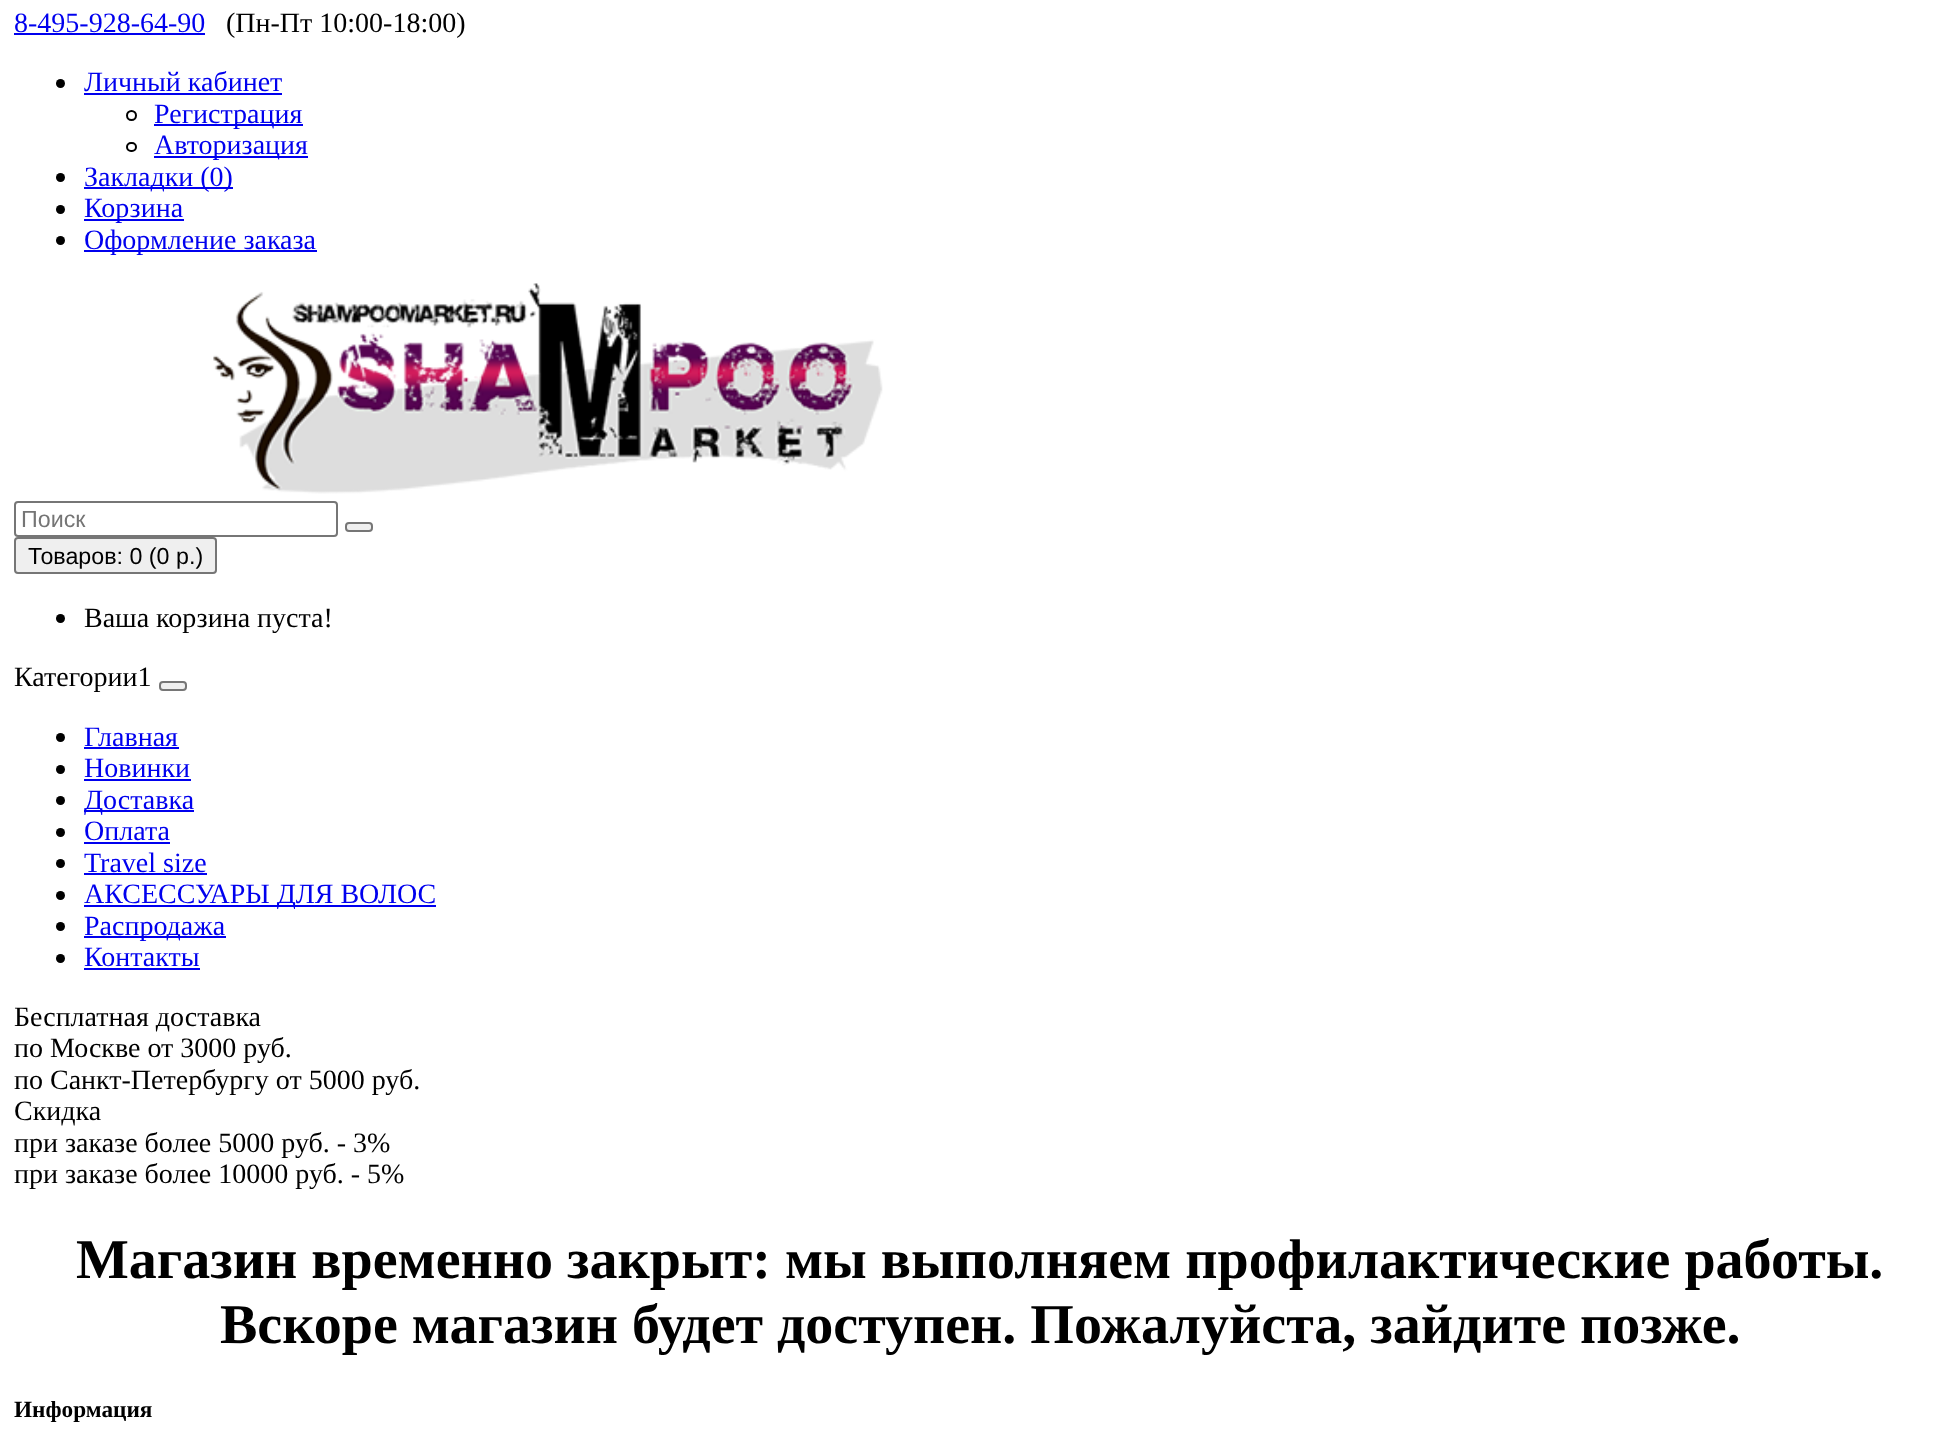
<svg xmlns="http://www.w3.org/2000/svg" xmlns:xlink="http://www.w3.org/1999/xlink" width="1960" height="1448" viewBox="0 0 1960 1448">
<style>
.cls-1{font:28px Liberation Serif;fill:#0000ee}
.cls-2{font:28px Liberation Serif;fill:#000000}
.cls-3{font:23.25px Liberation Sans;fill:#757575}
.cls-4{font:23.25px Liberation Sans;fill:#000000}
.cls-5{font:bold 56px Liberation Serif;fill:#000000}
.cls-6{font:bold 23.25px Liberation Serif;fill:#000000}
</style>
<rect width="100%" height="100%" fill="#ffffff"/>
<rect fill="#0000ee" x="14" y="33" width="191" height="2"/>
<circle fill="#000000" cx="60.5" cy="83.5" r="4.5"/>
<rect fill="#0000ee" x="84" y="93" width="198" height="2"/>
<circle fill="none" stroke="#000000" stroke-width="2" cx="131.5" cy="115.5" r="4.5"/>
<rect fill="#0000ee" x="154" y="124" width="149" height="2"/>
<rect fill="none" stroke="#000000" stroke-width="2" x="127" y="143" width="9" height="8" rx="4"/>
<rect fill="#0000ee" x="154" y="156" width="154" height="2"/>
<circle fill="#000000" cx="60.5" cy="177.5" r="4.5"/>
<rect fill="#0000ee" x="84" y="187" width="149" height="2"/>
<circle fill="#000000" cx="60.5" cy="209.5" r="4.5"/>
<rect fill="#0000ee" x="84" y="219" width="100" height="2"/>
<circle fill="#000000" cx="60.5" cy="240.5" r="4.5"/>
<rect fill="#0000ee" x="84" y="250" width="233" height="2"/>
<image xlink:href="image0.png" x="213" y="283" width="670" height="211"/>
<rect fill="none" stroke="#767676" stroke-width="2" x="15" y="502" width="322" height="34" rx="3"/>
<rect fill="#efefef" stroke="#767676" stroke-width="2" x="346" y="523" width="26" height="8" rx="3"/>
<rect fill="#efefef" stroke="#767676" stroke-width="2" x="15" y="538" width="201" height="35" rx="3"/>
<circle fill="#000000" cx="60.5" cy="618.5" r="4.5"/>
<rect fill="#efefef" stroke="#767676" stroke-width="2" x="160" y="682" width="26" height="8" rx="3"/>
<circle fill="#000000" cx="60.5" cy="737.5" r="4.5"/>
<rect fill="#0000ee" x="84" y="747" width="95" height="2"/>
<circle fill="#000000" cx="60.5" cy="769.5" r="4.5"/>
<rect fill="#0000ee" x="84" y="779" width="107" height="2"/>
<circle fill="#000000" cx="60.5" cy="800.5" r="4.5"/>
<rect fill="#0000ee" x="84" y="810" width="110" height="2"/>
<circle fill="#000000" cx="60.5" cy="832.5" r="4.5"/>
<rect fill="#0000ee" x="84" y="842" width="86" height="2"/>
<circle fill="#000000" cx="60.5" cy="863.5" r="4.5"/>
<rect fill="#0000ee" x="84" y="873" width="123" height="2"/>
<circle fill="#000000" cx="60.5" cy="895.5" r="4.5"/>
<rect fill="#0000ee" x="84" y="905" width="352" height="2"/>
<circle fill="#000000" cx="60.5" cy="926.5" r="4.5"/>
<rect fill="#0000ee" x="84" y="936" width="142" height="2"/>
<circle fill="#000000" cx="60.5" cy="958.5" r="4.5"/>
<rect fill="#0000ee" x="84" y="968" width="116" height="2"/>
<text class="cls-1" x="14" y="32">8-495-928-64-90</text>
<text class="cls-2" x="226" y="32">(Пн-Пт 10:00-18:00)</text>
<text class="cls-1" x="84" y="91">Личный кабинет</text>
<text class="cls-1"><tspan x="154" y="123">Регистрация</tspan><tspan x="154" y="154">Авторизация</tspan></text>
<text class="cls-1"><tspan x="84" y="186">Закладки (0)</tspan><tspan x="84" y="217">Корзина</tspan><tspan x="84" y="249">Оформление заказа</tspan></text>
<text class="cls-3" x="21" y="527">Поиск</text>
<text class="cls-4" x="28" y="564">Товаров: 0 (0 р.)</text>
<text class="cls-2" x="84" y="627">Ваша корзина пуста!</text>
<text class="cls-2" x="14" y="686">Категории1</text>
<text class="cls-1"><tspan x="84" y="746">Главная</tspan><tspan x="84" y="777">Новинки</tspan><tspan x="84" y="809">Доставка</tspan><tspan x="84" y="840">Оплата</tspan><tspan x="84" y="872">Travel size</tspan><tspan x="84" y="903">АКСЕССУАРЫ ДЛЯ ВОЛОС</tspan><tspan x="84" y="935">Распродажа</tspan><tspan x="84" y="966">Контакты</tspan></text>
<text class="cls-2"><tspan x="14" y="1026">Бесплатная доставка</tspan><tspan x="14" y="1057">по Москве от 3000 руб.</tspan><tspan x="14" y="1089">по Санкт-Петербургу от 5000 руб.</tspan><tspan x="14" y="1120">Скидка</tspan><tspan x="14" y="1152">при заказе более 5000 руб. - 3%</tspan><tspan x="14" y="1183">при заказе более 10000 руб. - 5%</tspan></text>
<text class="cls-5" x="76" y="1278">Магазин временно закрыт: мы выполняем профилактические работы.</text>
<text class="cls-5" x="220" y="1343">Вскоре магазин будет доступен. Пожалуйста, зайдите позже.</text>
<text class="cls-6" x="14" y="1417">Информация</text>
</svg>
